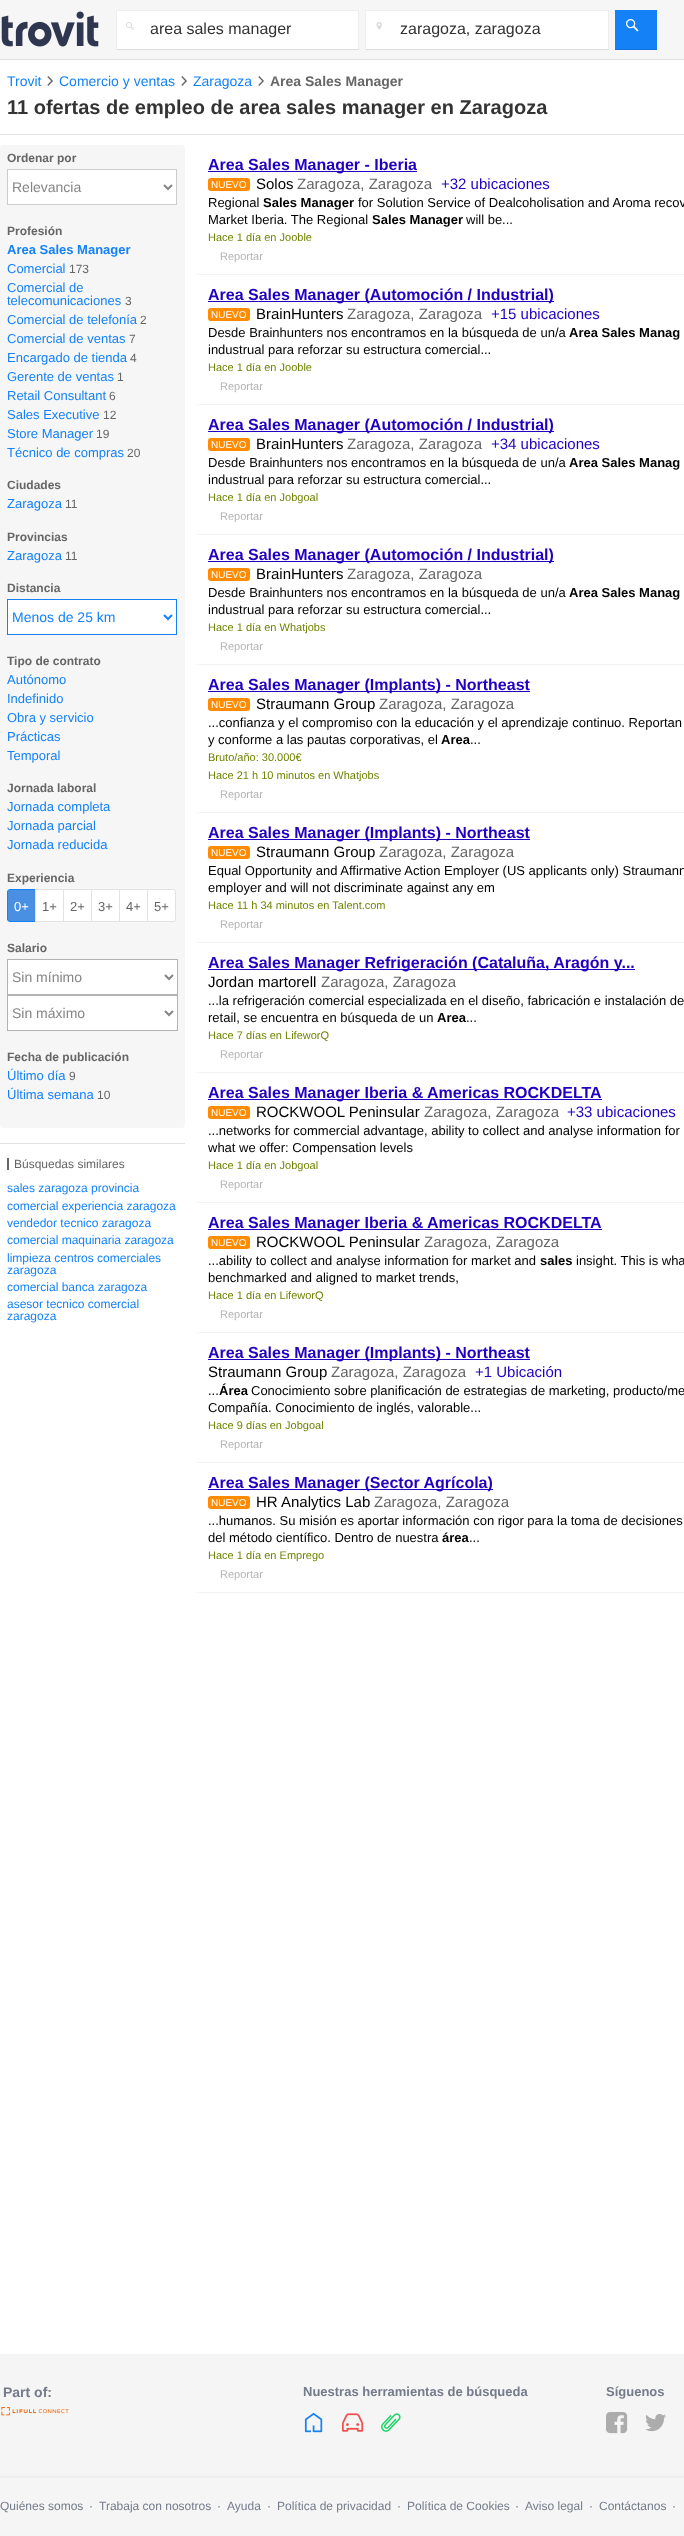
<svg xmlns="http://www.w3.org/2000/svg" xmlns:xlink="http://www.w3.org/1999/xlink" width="684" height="2536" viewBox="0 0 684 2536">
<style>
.cls-1{font:16px Liberation Sans;fill:#333333}
.cls-2{font:14px Liberation Sans;fill:#1481f7}
.cls-3{font:bold 14px Liberation Sans;fill:#666666}
.cls-4{font:bold 20px Liberation Sans;fill:#333333}
.cls-5{font:bold 12px Liberation Sans;fill:#666666}
.cls-6{font:14px Liberation Sans;fill:#858585}
.cls-7{font:bold 13px Liberation Sans;fill:#1481f7}
.cls-8{font:13px Liberation Sans;fill:#1481f7}
.cls-9{font:12px Liberation Sans;fill:#666666}
.cls-10{font:13px Liberation Sans;fill:#ffffff}
.cls-11{font:13px Liberation Sans;fill:#666666}
.cls-12{font:12px Liberation Sans;fill:#1481f7}
.cls-13{font:bold 16px Liberation Sans;fill:#2200c1}
.cls-14{font:10px Liberation Sans;fill:#ffffff}
.cls-15{font:15px Liberation Sans;fill:#000000}
.cls-16{font:15px Liberation Sans;fill:#666666}
.cls-17{font:15px Liberation Sans;fill:#2200c1}
.cls-18{font:13px Liberation Sans;fill:#000000}
.cls-19{font:bold 13px Liberation Sans;fill:#000000}
.cls-20{font:11px Liberation Sans;fill:#708300}
.cls-21{font:11px Liberation Sans;fill:#b4b4b4}
.cls-22{font:bold 14px Liberation Sans;fill:#747b8a}
.cls-23{font:bold 13px Liberation Sans;fill:#747b8a}
.cls-24{font:12px Liberation Sans;fill:#747b8a}
</style>
<rect width="100%" height="100%" fill="#ffffff"/>
<rect fill="#f6f6f7" x="0" y="0" width="684" height="59"/>
<rect fill="#e1e0e0" x="0" y="59" width="684" height="1"/>
<image xlink:href="image0.png" x="1" y="11" width="98" height="36"/>
<rect fill="#ffffff" x="117" y="11" width="241" height="38"/>
<image xlink:href="image1.png" x="126" y="22" width="8" height="8"/>
<rect fill="#eeeeee" x="116" y="10" width="243" height="1"/>
<rect fill="#eeeeee" x="358" y="10" width="1" height="40"/>
<rect fill="#dddddd" x="116" y="49" width="243" height="1"/>
<rect fill="#eeeeee" x="116" y="10" width="1" height="40"/>
<rect fill="#ffffff" x="366" y="11" width="242" height="38"/>
<image xlink:href="image2.png" x="376" y="22" width="6" height="8"/>
<rect fill="#eeeeee" x="365" y="10" width="244" height="1"/>
<rect fill="#eeeeee" x="608" y="10" width="1" height="40"/>
<rect fill="#dddddd" x="365" y="49" width="244" height="1"/>
<rect fill="#eeeeee" x="365" y="10" width="1" height="40"/>
<rect fill="#1481f7" x="615" y="10" width="42" height="39"/>
<rect fill="#1271d8" x="615" y="49" width="42" height="1"/>
<image xlink:href="image3.png" x="626" y="19" width="13" height="13"/>
<rect fill="#e2e2e2" x="0" y="134" width="684" height="1"/>
<image xlink:href="image4.png" x="47" y="76" width="6" height="10"/>
<image xlink:href="image4.png" x="181" y="76" width="6" height="10"/>
<image xlink:href="image4.png" x="258" y="76" width="6" height="10"/>
<rect fill="#f6f6f7" x="0" y="145" width="185" height="983" rx="4"/>
<rect fill="#ffffff" stroke="#cccccc" x="7.5" y="169.5" width="169" height="35"/>
<path fill="none" stroke="#858585" stroke-width="2" d="M164 185L168 189L172 185"/>
<rect fill="#ffffff" stroke="#1481f7" x="7.5" y="599.5" width="169" height="35"/>
<path fill="none" stroke="#1481f7" stroke-width="2" d="M164 615L168 619L172 615"/>
<path fill="#4a90e2" stroke="#1481f7" d="M10 889.5H35.5V921.5H10C8.5 921.5 7.5 920.5 7.5 919V892C7.5 890.5 8.5 889.5 10 889.5Z"/>
<rect fill="#ffffff" stroke="#e4e3e3" x="35.5" y="889.5" width="28" height="32"/>
<rect fill="#ffffff" stroke="#e4e3e3" x="63.5" y="889.5" width="28" height="32"/>
<rect fill="#ffffff" stroke="#e4e3e3" x="91.5" y="889.5" width="28" height="32"/>
<rect fill="#ffffff" stroke="#e4e3e3" x="119.5" y="889.5" width="28" height="32"/>
<path fill="#ffffff" stroke="#e4e3e3" d="M147.5 889.5H173C174.5 889.5 175.5 890.5 175.5 892V919C175.5 920.5 174.5 921.5 173 921.5H147.5Z"/>
<rect fill="#ffffff" stroke="#b2b2b2" x="7.5" y="959.5" width="170" height="35"/>
<path fill="none" stroke="#858585" stroke-width="2" d="M165 975L169 979L173 975"/>
<rect fill="#ffffff" stroke="#b2b2b2" x="7.5" y="995.5" width="170" height="35"/>
<path fill="none" stroke="#858585" stroke-width="2" d="M165 1011L169 1015L173 1011"/>
<rect fill="#e2e2e2" x="0" y="1143" width="185" height="1"/>
<rect fill="#666666" x="7" y="1158" width="2" height="12"/>
<path fill="#f3f3f3" d="M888 275H195L198 274H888Z"/>
<path fill="#ffffff" d="M195 275V145H198V274Z"/>
<rect fill="#2200c1" x="208" y="171" width="209" height="1"/>
<rect fill="#ff8b02" x="208" y="178" width="42" height="13" rx="3"/>
<path fill="#f3f3f3" d="M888 405H195L198 404H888Z"/>
<path fill="#ffffff" d="M195 405V275H198V404Z"/>
<rect fill="#2200c1" x="208" y="301" width="346" height="1"/>
<rect fill="#ff8b02" x="208" y="308" width="42" height="13" rx="3"/>
<path fill="#f3f3f3" d="M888 535H195L198 534H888Z"/>
<path fill="#ffffff" d="M195 535V405H198V534Z"/>
<rect fill="#2200c1" x="208" y="431" width="346" height="1"/>
<rect fill="#ff8b02" x="208" y="438" width="42" height="13" rx="3"/>
<path fill="#f3f3f3" d="M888 665H195L198 664H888Z"/>
<path fill="#ffffff" d="M195 665V535H198V664Z"/>
<rect fill="#2200c1" x="208" y="561" width="346" height="1"/>
<rect fill="#ff8b02" x="208" y="568" width="42" height="13" rx="3"/>
<path fill="#f3f3f3" d="M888 813H195L198 812H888Z"/>
<path fill="#ffffff" d="M195 813V665H198V812Z"/>
<rect fill="#2200c1" x="208" y="691" width="322" height="1"/>
<rect fill="#ff8b02" x="208" y="698" width="42" height="13" rx="3"/>
<path fill="#f3f3f3" d="M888 943H195L198 942H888Z"/>
<path fill="#ffffff" d="M195 943V813H198V942Z"/>
<rect fill="#2200c1" x="208" y="839" width="322" height="1"/>
<rect fill="#ff8b02" x="208" y="846" width="42" height="13" rx="3"/>
<path fill="#f3f3f3" d="M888 1073H195L198 1072H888Z"/>
<path fill="#ffffff" d="M195 1073V943H198V1072Z"/>
<rect fill="#2200c1" x="208" y="969" width="427" height="1"/>
<path fill="#f3f3f3" d="M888 1203H195L198 1202H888Z"/>
<path fill="#ffffff" d="M195 1203V1073H198V1202Z"/>
<rect fill="#2200c1" x="208" y="1099" width="394" height="1"/>
<rect fill="#ff8b02" x="208" y="1106" width="42" height="13" rx="3"/>
<path fill="#f3f3f3" d="M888 1333H195L198 1332H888Z"/>
<path fill="#ffffff" d="M195 1333V1203H198V1332Z"/>
<rect fill="#2200c1" x="208" y="1229" width="394" height="1"/>
<rect fill="#ff8b02" x="208" y="1236" width="42" height="13" rx="3"/>
<path fill="#f3f3f3" d="M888 1463H195L198 1462H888Z"/>
<path fill="#ffffff" d="M195 1463V1333H198V1462Z"/>
<rect fill="#2200c1" x="208" y="1359" width="322" height="1"/>
<path fill="#f3f3f3" d="M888 1593H195L198 1592H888Z"/>
<path fill="#ffffff" d="M195 1593V1463H198V1592Z"/>
<rect fill="#2200c1" x="208" y="1489" width="285" height="1"/>
<rect fill="#ff8b02" x="208" y="1496" width="42" height="13" rx="3"/>
<rect fill="#f5f5f5" x="0" y="2354" width="684" height="182"/>
<rect fill="#ededed" x="0" y="2476" width="684" height="2"/>
<image xlink:href="image5.png" x="1" y="2407" width="68" height="9"/>
<image xlink:href="image6.png" x="304" y="2413" width="19" height="20"/>
<image xlink:href="image7.png" x="342" y="2413" width="22" height="19"/>
<image xlink:href="image8.png" x="381" y="2413" width="20" height="19"/>
<image xlink:href="image9.png" x="606" y="2412" width="22" height="22"/>
<image xlink:href="image10.png" x="645" y="2414" width="21" height="18"/>
<text class="cls-1" x="150" y="34">area sales manager</text>
<text class="cls-1" x="400" y="34">zaragoza, zaragoza</text>
<text class="cls-2" x="7" y="86">Trovit</text>
<text class="cls-2" x="59" y="86">Comercio y ventas</text>
<text class="cls-2" x="193" y="86">Zaragoza</text>
<text class="cls-3" x="270" y="86">Area Sales Manager</text>
<text class="cls-4" x="7" y="114">11 ofertas de empleo de area sales manager en Zaragoza</text>
<text class="cls-5" x="7" y="162">Ordenar por</text>
<text class="cls-6" x="12" y="192">Relevancia</text>
<text class="cls-5" x="7" y="235">Profesión</text>
<text class="cls-7" x="7" y="254">Area Sales Manager</text>
<text class="cls-8" x="7" y="273">Comercial</text>
<text class="cls-9" x="69" y="273">173</text>
<text class="cls-8"><tspan x="7" y="292">Comercial de</tspan><tspan x="7" y="305">telecomunicaciones</tspan></text>
<text class="cls-9" x="125" y="305">3</text>
<text class="cls-8" x="7" y="324">Comercial de telefonía</text>
<text class="cls-9" x="140" y="324">2</text>
<text class="cls-8" x="7" y="343">Comercial de ventas</text>
<text class="cls-9" x="129" y="343">7</text>
<text class="cls-8" x="7" y="362">Encargado de tienda</text>
<text class="cls-9" x="130" y="362">4</text>
<text class="cls-8" x="7" y="381">Gerente de ventas</text>
<text class="cls-9" x="117" y="381">1</text>
<text class="cls-8" x="7" y="400">Retail Consultant</text>
<text class="cls-9" x="109" y="400">6</text>
<text class="cls-8" x="7" y="419">Sales Executive</text>
<text class="cls-9" x="103" y="419">12</text>
<text class="cls-8" x="7" y="438">Store Manager</text>
<text class="cls-9" x="96" y="438">19</text>
<text class="cls-8" x="7" y="457">Técnico de compras</text>
<text class="cls-9" x="127" y="457">20</text>
<text class="cls-5" x="7" y="489">Ciudades</text>
<text class="cls-8" x="7" y="508">Zaragoza</text>
<text class="cls-9" x="65" y="508">11</text>
<text class="cls-5" x="7" y="541">Provincias</text>
<text class="cls-8" x="7" y="560">Zaragoza</text>
<text class="cls-9" x="65" y="560">11</text>
<text class="cls-5" x="7" y="592">Distancia</text>
<text class="cls-2" x="12" y="622">Menos de 25 km</text>
<text class="cls-5" x="7" y="665">Tipo de contrato</text>
<text class="cls-8"><tspan x="7" y="684">Autónomo</tspan><tspan x="7" y="703">Indefinido</tspan><tspan x="7" y="722">Obra y servicio</tspan><tspan x="7" y="741">Prácticas</tspan><tspan x="7" y="760">Temporal</tspan></text>
<text class="cls-5" x="7" y="792">Jornada laboral</text>
<text class="cls-8"><tspan x="7" y="811">Jornada completa</tspan><tspan x="7" y="830">Jornada parcial</tspan><tspan x="7" y="849">Jornada reducida</tspan></text>
<text class="cls-5" x="7" y="882">Experiencia</text>
<text class="cls-10" x="14" y="911">0+</text>
<text class="cls-11" x="42" y="911">1+</text>
<text class="cls-11" x="70" y="911">2+</text>
<text class="cls-11" x="98" y="911">3+</text>
<text class="cls-11" x="126" y="911">4+</text>
<text class="cls-11" x="154" y="911">5+</text>
<text class="cls-5" x="7" y="952">Salario</text>
<text class="cls-6" x="12" y="982">Sin mínimo</text>
<text class="cls-6" x="12" y="1018">Sin máximo</text>
<text class="cls-5" x="7" y="1061">Fecha de publicación</text>
<text class="cls-8" x="7" y="1080">Último día</text>
<text class="cls-9" x="69" y="1080">9</text>
<text class="cls-8" x="7" y="1099">Última semana</text>
<text class="cls-9" x="97" y="1099">10</text>
<text class="cls-9" x="14" y="1168">Búsquedas similares</text>
<text class="cls-12"><tspan x="7" y="1192">sales zaragoza provincia</tspan><tspan x="7" y="1210">comercial experiencia zaragoza</tspan><tspan x="7" y="1227">vendedor tecnico zaragoza</tspan><tspan x="7" y="1244">comercial maquinaria zaragoza</tspan><tspan x="7" y="1262">limpieza centros comerciales</tspan><tspan x="7" y="1274">zaragoza</tspan><tspan x="7" y="1291">comercial banca zaragoza</tspan><tspan x="7" y="1308">asesor tecnico comercial</tspan><tspan x="7" y="1320">zaragoza</tspan></text>
<text class="cls-13" x="208" y="170">Area Sales Manager - Iberia</text>
<text class="cls-14" x="211" y="188">NUEVO</text>
<text class="cls-15" x="256" y="189">Solos</text>
<text class="cls-16" x="297" y="189">Zaragoza, Zaragoza</text>
<text class="cls-17" x="441" y="189">+32 ubicaciones</text>
<text class="cls-18" x="208" y="207">Regional</text>
<text class="cls-19" x="263" y="207">Sales Manager</text>
<text class="cls-18" x="358" y="207">for Solution Service of Dealcoholisation and Aroma recov</text>
<text class="cls-18" x="208" y="224">Market Iberia. The Regional</text>
<text class="cls-19" x="372" y="224">Sales Manager</text>
<text class="cls-18" x="466" y="224">will be...</text>
<text class="cls-20" x="208" y="241">Hace 1 día en Jooble</text>
<text class="cls-21" x="220" y="260">Reportar</text>
<text class="cls-13" x="208" y="300">Area Sales Manager (Automoción / Industrial)</text>
<text class="cls-14" x="211" y="318">NUEVO</text>
<text class="cls-15" x="256" y="319">BrainHunters</text>
<text class="cls-16" x="347" y="319">Zaragoza, Zaragoza</text>
<text class="cls-17" x="491" y="319">+15 ubicaciones</text>
<text class="cls-18" x="208" y="337">Desde Brainhunters nos encontramos en la búsqueda de un/a</text>
<text class="cls-19" x="569" y="337">Area Sales Manag</text>
<text class="cls-18" x="208" y="354">industrual para reforzar su estructura comercial...</text>
<text class="cls-20" x="208" y="371">Hace 1 día en Jooble</text>
<text class="cls-21" x="220" y="390">Reportar</text>
<text class="cls-13" x="208" y="430">Area Sales Manager (Automoción / Industrial)</text>
<text class="cls-14" x="211" y="448">NUEVO</text>
<text class="cls-15" x="256" y="449">BrainHunters</text>
<text class="cls-16" x="347" y="449">Zaragoza, Zaragoza</text>
<text class="cls-17" x="491" y="449">+34 ubicaciones</text>
<text class="cls-18" x="208" y="467">Desde Brainhunters nos encontramos en la búsqueda de un/a</text>
<text class="cls-19" x="569" y="467">Area Sales Manag</text>
<text class="cls-18" x="208" y="484">industrual para reforzar su estructura comercial...</text>
<text class="cls-20" x="208" y="501">Hace 1 día en Jobgoal</text>
<text class="cls-21" x="220" y="520">Reportar</text>
<text class="cls-13" x="208" y="560">Area Sales Manager (Automoción / Industrial)</text>
<text class="cls-14" x="211" y="578">NUEVO</text>
<text class="cls-15" x="256" y="579">BrainHunters</text>
<text class="cls-16" x="347" y="579">Zaragoza, Zaragoza</text>
<text class="cls-18" x="208" y="597">Desde Brainhunters nos encontramos en la búsqueda de un/a</text>
<text class="cls-19" x="569" y="597">Area Sales Manag</text>
<text class="cls-18" x="208" y="614">industrual para reforzar su estructura comercial...</text>
<text class="cls-20" x="208" y="631">Hace 1 día en Whatjobs</text>
<text class="cls-21" x="220" y="650">Reportar</text>
<text class="cls-13" x="208" y="690">Area Sales Manager (Implants) - Northeast</text>
<text class="cls-14" x="211" y="708">NUEVO</text>
<text class="cls-15" x="256" y="709">Straumann Group</text>
<text class="cls-16" x="379" y="709">Zaragoza, Zaragoza</text>
<text class="cls-18"><tspan x="208" y="727">...confianza y el compromiso con la educación y el aprendizaje continuo. Reportan</tspan><tspan x="208" y="744">y conforme a las pautas corporativas, el</tspan></text>
<text class="cls-19" x="441" y="744">Area</text>
<text class="cls-18" x="470" y="744">...</text>
<text class="cls-20"><tspan x="208" y="761">Bruto/año: 30.000€</tspan><tspan x="208" y="779">Hace 21 h 10 minutos en Whatjobs</tspan></text>
<text class="cls-21" x="220" y="798">Reportar</text>
<text class="cls-13" x="208" y="838">Area Sales Manager (Implants) - Northeast</text>
<text class="cls-14" x="211" y="856">NUEVO</text>
<text class="cls-15" x="256" y="857">Straumann Group</text>
<text class="cls-16" x="379" y="857">Zaragoza, Zaragoza</text>
<text class="cls-18"><tspan x="208" y="875">Equal Opportunity and Affirmative Action Employer (US applicants only) Straumann</tspan><tspan x="208" y="892">employer and will not discriminate against any em</tspan></text>
<text class="cls-20" x="208" y="909">Hace 11 h 34 minutos en Talent.com</text>
<text class="cls-21" x="220" y="928">Reportar</text>
<text class="cls-13" x="208" y="968">Area Sales Manager Refrigeración (Cataluña, Aragón y...</text>
<text class="cls-15" x="208" y="987">Jordan martorell</text>
<text class="cls-16" x="321" y="987">Zaragoza, Zaragoza</text>
<text class="cls-18"><tspan x="208" y="1005">...la refrigeración comercial especializada en el diseño, fabricación e instalación de</tspan><tspan x="208" y="1022">retail, se encuentra en búsqueda de un</tspan></text>
<text class="cls-19" x="437" y="1022">Area</text>
<text class="cls-18" x="466" y="1022">...</text>
<text class="cls-20" x="208" y="1039">Hace 7 días en LifeworQ</text>
<text class="cls-21" x="220" y="1058">Reportar</text>
<text class="cls-13" x="208" y="1098">Area Sales Manager Iberia &amp; Americas ROCKDELTA</text>
<text class="cls-14" x="211" y="1116">NUEVO</text>
<text class="cls-15" x="256" y="1117">ROCKWOOL Peninsular</text>
<text class="cls-16" x="424" y="1117">Zaragoza, Zaragoza</text>
<text class="cls-17" x="567" y="1117">+33 ubicaciones</text>
<text class="cls-18"><tspan x="208" y="1135">...networks for commercial advantage, ability to collect and analyse information for</tspan><tspan x="208" y="1152">what we offer: Compensation levels</tspan></text>
<text class="cls-20" x="208" y="1169">Hace 1 día en Jobgoal</text>
<text class="cls-21" x="220" y="1188">Reportar</text>
<text class="cls-13" x="208" y="1228">Area Sales Manager Iberia &amp; Americas ROCKDELTA</text>
<text class="cls-14" x="211" y="1246">NUEVO</text>
<text class="cls-15" x="256" y="1247">ROCKWOOL Peninsular</text>
<text class="cls-16" x="424" y="1247">Zaragoza, Zaragoza</text>
<text class="cls-18" x="208" y="1265">...ability to collect and analyse information for market and</text>
<text class="cls-19" x="540" y="1265">sales</text>
<text class="cls-18" x="576" y="1265">insight. This is wha</text>
<text class="cls-18" x="208" y="1282">benchmarked and aligned to market trends,</text>
<text class="cls-20" x="208" y="1299">Hace 1 día en LifeworQ</text>
<text class="cls-21" x="220" y="1318">Reportar</text>
<text class="cls-13" x="208" y="1358">Area Sales Manager (Implants) - Northeast</text>
<text class="cls-15" x="208" y="1377">Straumann Group</text>
<text class="cls-16" x="331" y="1377">Zaragoza, Zaragoza</text>
<text class="cls-17" x="475" y="1377">+1 Ubicación</text>
<text class="cls-18" x="208" y="1395">...</text>
<text class="cls-19" x="219" y="1395">Área</text>
<text class="cls-18" x="251" y="1395">Conocimiento sobre planificación de estrategias de marketing, producto/me</text>
<text class="cls-18" x="208" y="1412">Compañía. Conocimiento de inglés, valorable...</text>
<text class="cls-20" x="208" y="1429">Hace 9 días en Jobgoal</text>
<text class="cls-21" x="220" y="1448">Reportar</text>
<text class="cls-13" x="208" y="1488">Area Sales Manager (Sector Agrícola)</text>
<text class="cls-14" x="211" y="1506">NUEVO</text>
<text class="cls-15" x="256" y="1507">HR Analytics Lab</text>
<text class="cls-16" x="374" y="1507">Zaragoza, Zaragoza</text>
<text class="cls-18"><tspan x="208" y="1525">...humanos. Su misión es aportar información con rigor para la toma de decisiones</tspan><tspan x="208" y="1542">del método científico. Dentro de nuestra</tspan></text>
<text class="cls-19" x="442" y="1542">área</text>
<text class="cls-18" x="469" y="1542">...</text>
<text class="cls-20" x="208" y="1559">Hace 1 día en Emprego</text>
<text class="cls-21" x="220" y="1578">Reportar</text>
<text class="cls-22" x="3" y="2397">Part of:</text>
<text class="cls-23" x="303" y="2396">Nuestras herramientas de búsqueda</text>
<text class="cls-23" x="606" y="2396">Síguenos</text>
<text class="cls-24" x="0" y="2510">Quiénes somos</text>
<text class="cls-24" x="89" y="2510">·</text>
<text class="cls-24" x="99" y="2510">Trabaja con nosotros</text>
<text class="cls-24" x="217" y="2510">·</text>
<text class="cls-24" x="227" y="2510">Ayuda</text>
<text class="cls-24" x="267" y="2510">·</text>
<text class="cls-24" x="277" y="2510">Política de privacidad</text>
<text class="cls-24" x="397" y="2510">·</text>
<text class="cls-24" x="407" y="2510">Política de Cookies</text>
<text class="cls-24" x="515" y="2510">·</text>
<text class="cls-24" x="525" y="2510">Aviso legal</text>
<text class="cls-24" x="589" y="2510">·</text>
<text class="cls-24" x="599" y="2510">Contáctanos</text>
<text class="cls-24" x="672" y="2510">·</text>
</svg>
